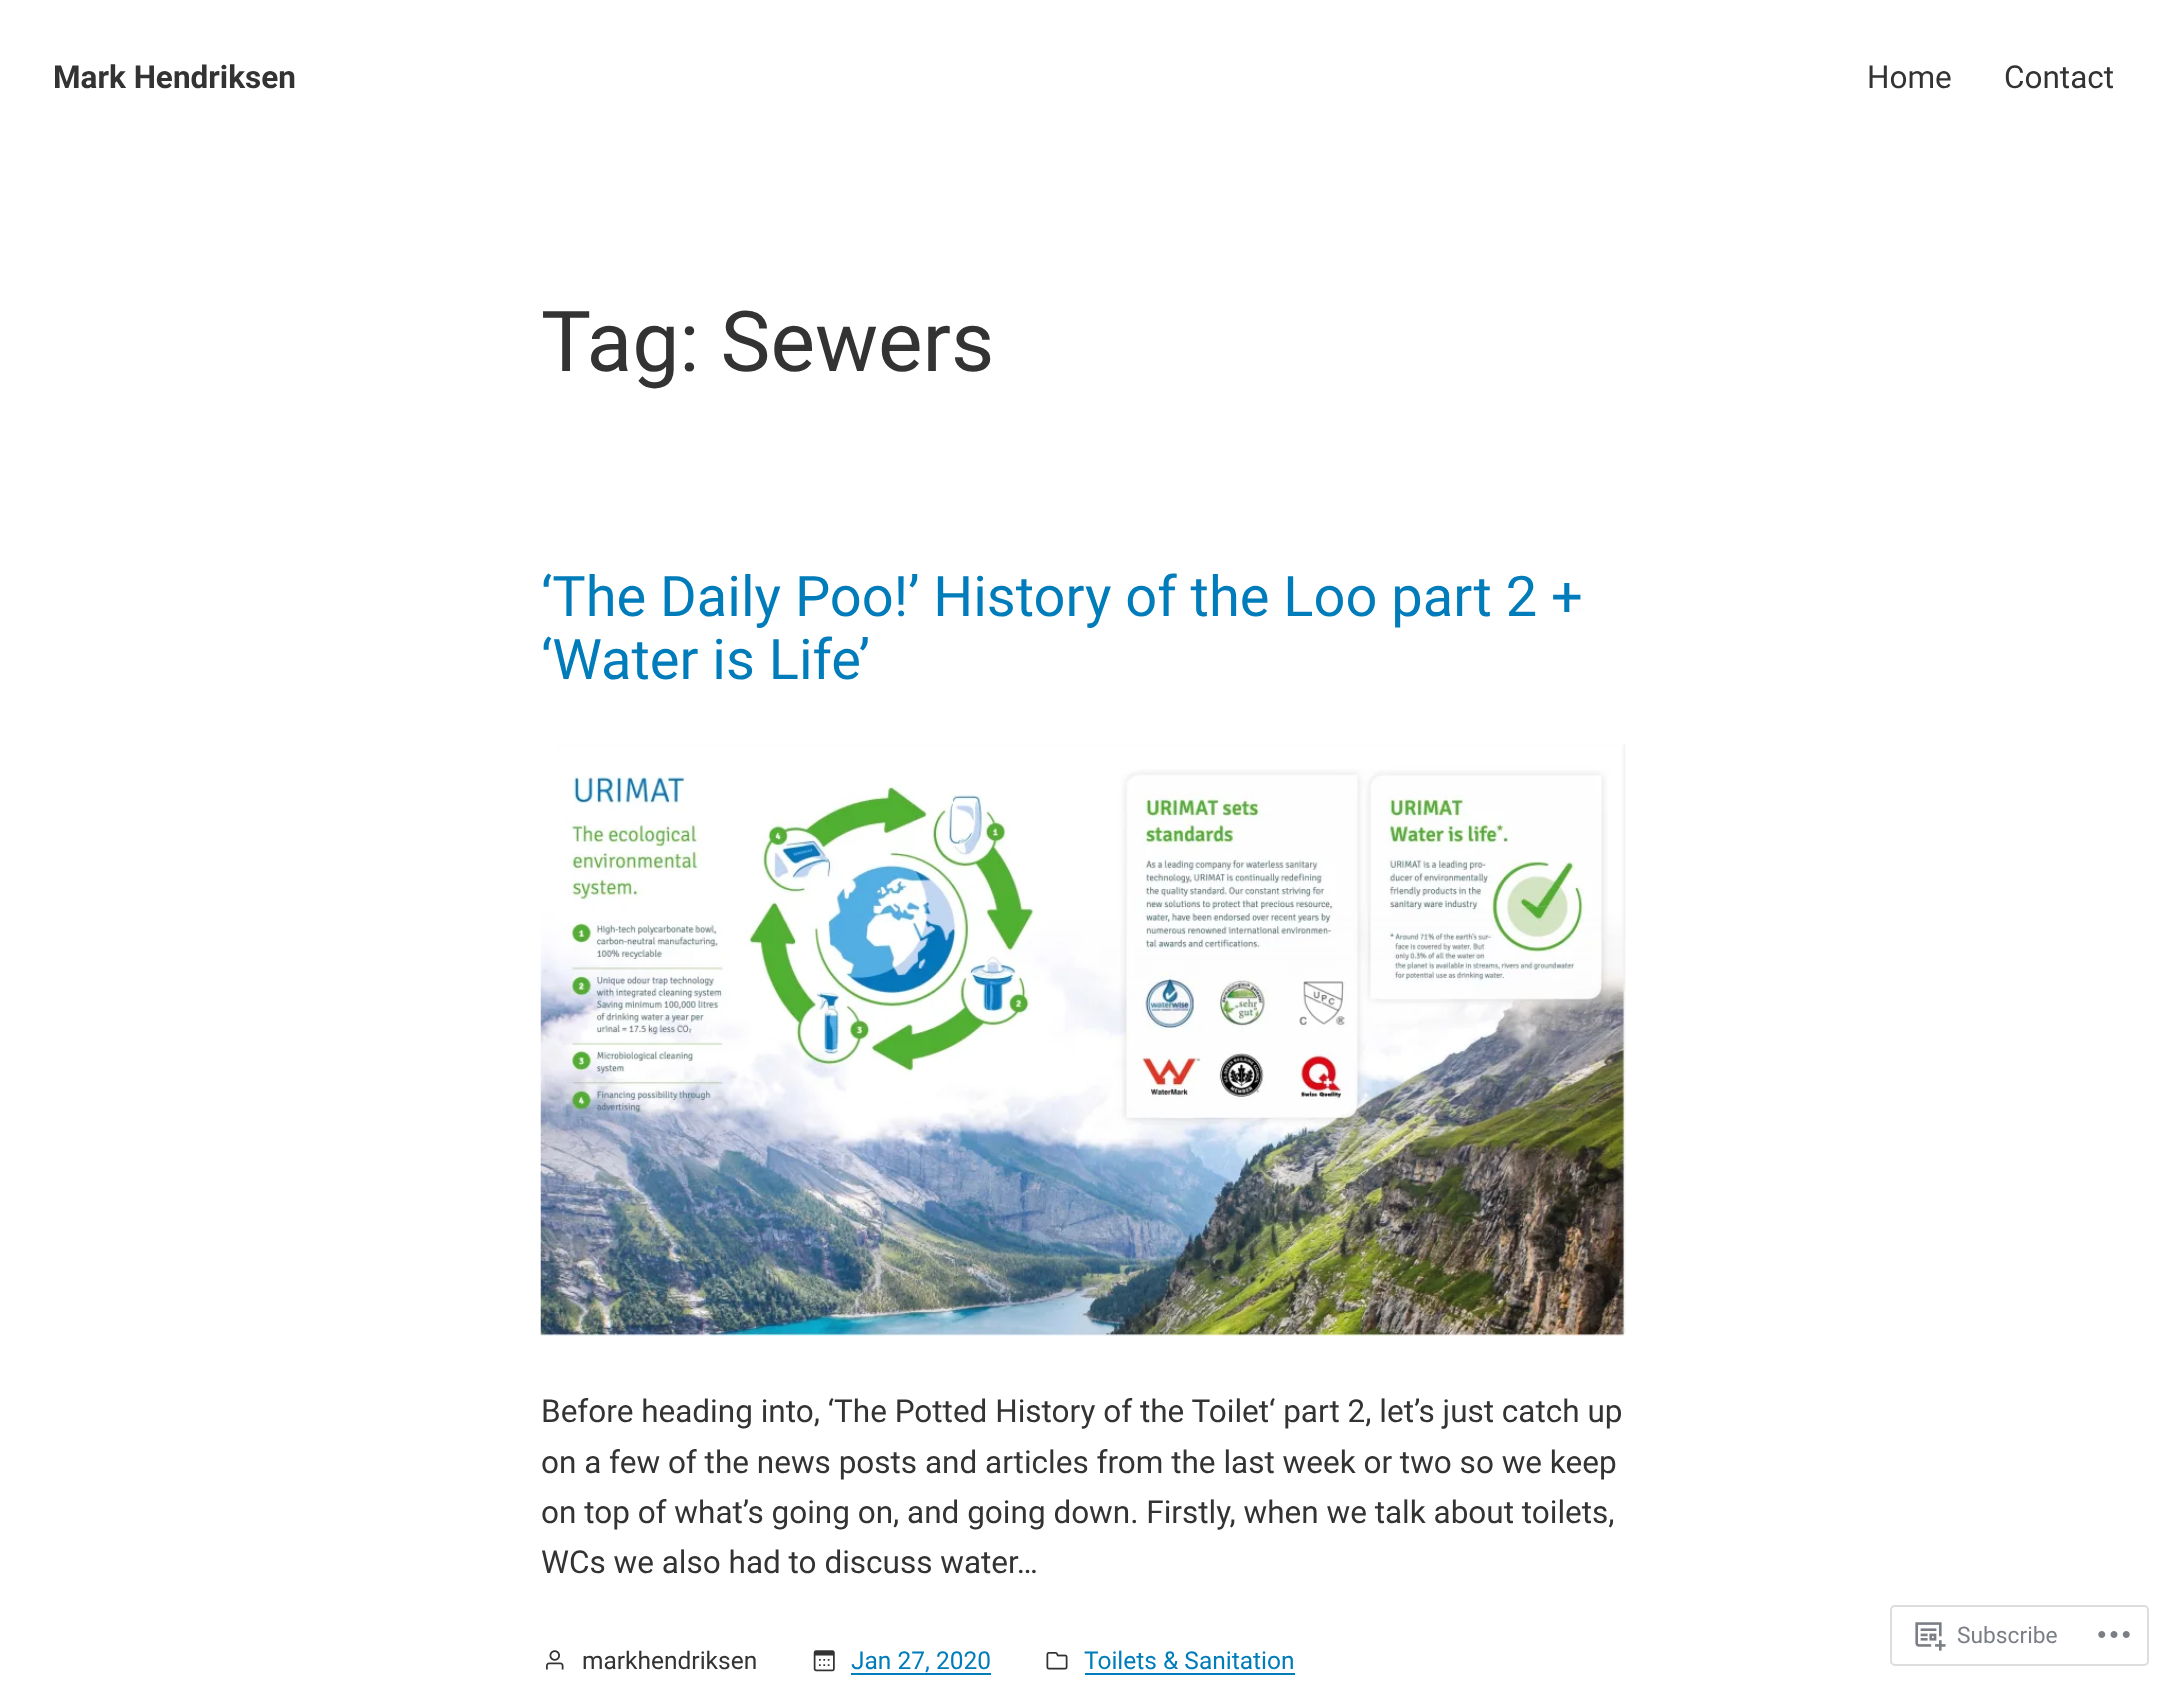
<svg xmlns="http://www.w3.org/2000/svg" xmlns:xlink="http://www.w3.org/1999/xlink" width="2165" height="1682" viewBox="0 0 2165 1682">
<style>
.cls-1{font:bold 31.5px Roboto;fill:#333333}
.cls-2{font:31.5px Roboto;fill:#333333}
.cls-3{font:84px Roboto;fill:#333333}
.cls-4{font:56px Roboto;fill:#007cba}
.cls-5{font:24.5px Roboto;fill:#333333}
.cls-6{font:24.5px Roboto;fill:#007cba}
.cls-7{font:22.75px Roboto;fill:#7b7f85}
</style>
<rect width="100%" height="100%" fill="#ffffff"/>
<image xlink:href="image0.png" x="540" y="744" width="1086" height="592"/>
<image xlink:href="image1.png" x="546" y="1650" width="18" height="20"/>
<image xlink:href="image2.png" x="813" y="1650" width="22" height="22"/>
<rect fill="#007cba" x="851" y="1673" width="140" height="2"/>
<image xlink:href="image3.png" x="1046" y="1652" width="22" height="18"/>
<rect fill="#007cba" x="1085" y="1673" width="210" height="2"/>
<rect fill="none" stroke="#dddddf" stroke-width="2" x="1891" y="1606" width="257" height="59" rx="4"/>
<image xlink:href="image4.png" x="1915" y="1622" width="31" height="29"/>
<image xlink:href="image5.png" x="2098" y="1631" width="32" height="7"/>
<text class="cls-1" x="53" y="88">Mark Hendriksen</text>
<text class="cls-2" x="1867" y="88">Home</text>
<text class="cls-2" x="2004" y="88">Contact</text>
<text class="cls-3" x="541" y="371">Tag: Sewers</text>
<text class="cls-4"><tspan x="541" y="616">‘The Daily Poo!’ History of the Loo part 2 +</tspan><tspan x="541" y="679">‘Water is Life’</tspan></text>
<text class="cls-2"><tspan x="541" y="1422">Before heading into, ‘The Potted History of the Toilet‘ part 2, let’s just catch up</tspan><tspan x="541" y="1473">on a few of the news posts and articles from the last week or two so we keep</tspan><tspan x="541" y="1523">on top of what’s going on, and going down. Firstly, when we talk about toilets,</tspan><tspan x="541" y="1573">WCs we also had to discuss water…</tspan></text>
<text class="cls-5" x="582" y="1669">markhendriksen</text>
<text class="cls-6" x="851" y="1669">Jan 27, 2020</text>
<text class="cls-6" x="1084" y="1669">Toilets &amp; Sanitation</text>
<text class="cls-7" x="1957" y="1643">Subscribe</text>
</svg>
